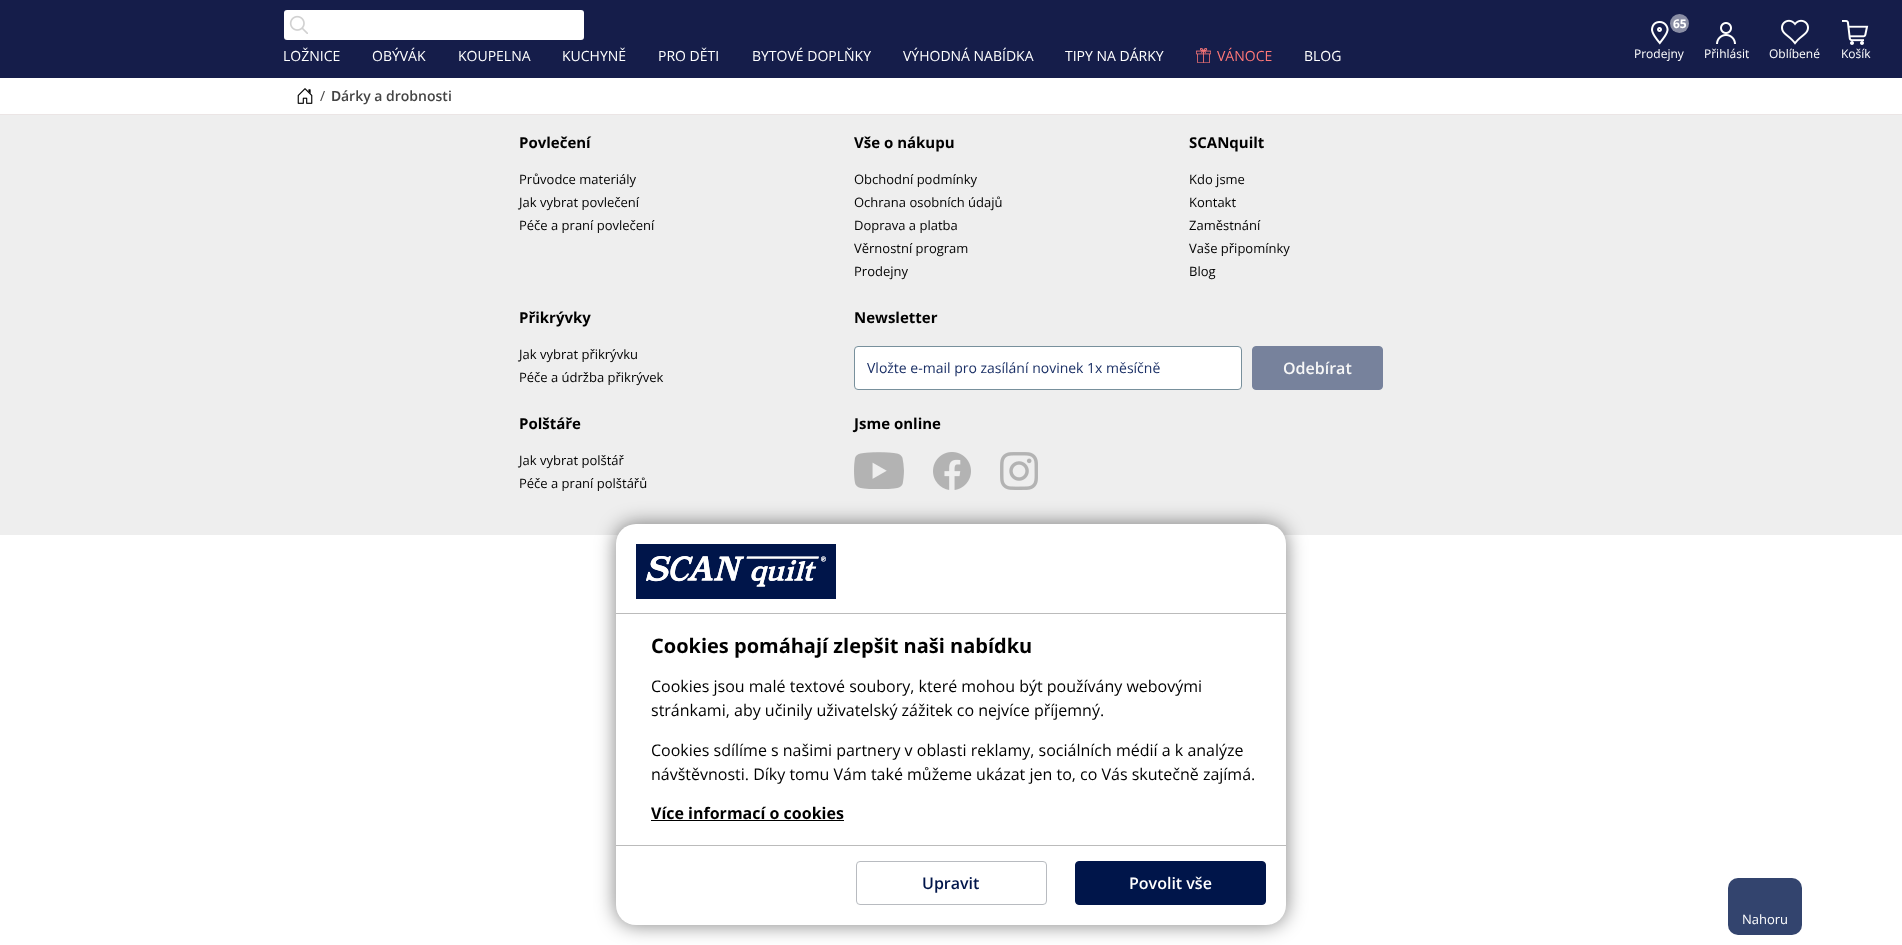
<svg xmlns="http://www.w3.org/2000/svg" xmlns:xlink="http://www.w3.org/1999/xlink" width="1902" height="945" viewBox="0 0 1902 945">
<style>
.cls-1{font:bold 12px Open Sans;fill:#ffffff}
.cls-2{font:12px Open Sans;fill:#ffffff}
.cls-3{font:14px Open Sans;fill:#ffffff}
.cls-4{font:14px Open Sans;fill:#ff7878}
.cls-5{font:14px Open Sans;fill:#444444}
.cls-6{font:600 14px Noto Sans;fill:#444444}
.cls-7{font:600 14px Open Sans;fill:#444444}
.cls-8{font:bold 15px Open Sans;fill:#000000}
.cls-9{font:13px Open Sans;fill:#000000}
.cls-10{font:14px Open Sans;fill:#1b3066}
.cls-11{font:600 16px Open Sans;fill:#f7f7f7}
.cls-12{font:bold 20px Open Sans;fill:#000000}
.cls-13{font:16px Open Sans;fill:#000000}
.cls-14{font:bold 16px Open Sans;fill:#000000}
.cls-15{font:600 16px Open Sans;fill:#00154a}
.cls-16{font:600 16px Open Sans;fill:#ffffff}
.cls-17{font:13px Open Sans;fill:#ffffff}
</style>
<rect width="100%" height="100%" fill="#ffffff"/>
<rect fill="#151d4a" x="0" y="0" width="1902" height="78"/>
<rect fill="#ffffff" x="284" y="10" width="300" height="30" rx="3"/>
<image xlink:href="image0.png" x="289" y="15" width="19" height="19"/>
<image xlink:href="image1.png" x="1651" y="21" width="18" height="24"/>
<circle fill="#8a8ea5" cx="1679.5" cy="23.5" r="9.5"/>
<image xlink:href="image2.png" x="1716" y="22" width="20" height="22"/>
<image xlink:href="image3.png" x="1781" y="19" width="28" height="26"/>
<image xlink:href="image4.png" x="1842" y="20" width="27" height="25"/>
<image xlink:href="image5.png" x="1196" y="48" width="15" height="15"/>
<rect fill="#ebe5e5" x="0" y="114" width="1902" height="1"/>
<image xlink:href="image6.png" x="297" y="88" width="16" height="16"/>
<rect fill="#eeeeee" x="0" y="115" width="1902" height="420"/>
<rect fill="#ffffff" stroke="#78909c" x="854.5" y="346.5" width="387" height="43" rx="3.5"/>
<rect fill="#77829c" stroke="#77829c" x="1252.5" y="346.5" width="130" height="43" rx="3.5"/>
<image xlink:href="image7.png" x="854" y="452" width="50" height="37"/>
<image xlink:href="image8.png" x="933" y="452" width="38" height="38"/>
<image xlink:href="image9.png" x="1000" y="452" width="38" height="38"/>
<rect fill="#000000" fill-opacity="0.5" filter="blur(10px)" x="616" y="524" width="670" height="401" rx="20"/>
<rect fill="#ffffff" x="616" y="524" width="670" height="401" rx="20"/>
<rect fill="#bbbbbb" x="616" y="613" width="670" height="1"/>
<rect fill="#00154a" x="636" y="544" width="200" height="55"/>
<image xlink:href="image10.png" x="646" y="556" width="180" height="31"/>
<rect fill="#000000" x="651" y="820" width="193" height="1"/>
<rect fill="#bbbbbb" x="616" y="845" width="670" height="1"/>
<rect fill="none" stroke="#b8bbc0" x="856.5" y="861.5" width="190" height="43" rx="3.5"/>
<rect fill="#00154a" stroke="#00154a" x="1075.5" y="861.5" width="190" height="43" rx="3.5"/>
<rect fill="#33446e" x="1728" y="878" width="74" height="57" rx="10"/>
<text class="cls-1" x="1673" y="28">65</text>
<text class="cls-2" x="1634" y="58">Prodejny</text>
<text class="cls-2" x="1704" y="58">Přihlásit</text>
<text class="cls-2" x="1769" y="58">Oblíbené</text>
<text class="cls-2" x="1841" y="58">Košík</text>
<text class="cls-3" x="283" y="61">LOŽNICE</text>
<text class="cls-3" x="372" y="61">OBÝVÁK</text>
<text class="cls-3" x="458" y="61">KOUPELNA</text>
<text class="cls-3" x="562" y="61">KUCHYNĚ</text>
<text class="cls-3" x="658" y="61">PRO DĚTI</text>
<text class="cls-3" x="752" y="61">BYTOVÉ DOPLŇKY</text>
<text class="cls-3" x="903" y="61">VÝHODNÁ NABÍDKA</text>
<text class="cls-3" x="1065" y="61">TIPY NA DÁRKY</text>
<text class="cls-4" x="1217" y="61">VÁNOCE</text>
<text class="cls-3" x="1304" y="61">BLOG</text>
<text class="cls-5" x="320" y="101">/</text>
<text class="cls-6" x="331" y="101">D</text>
<text class="cls-7" x="341" y="101">árky a drobnosti</text>
<text class="cls-8" x="519" y="148">Povlečení</text>
<text class="cls-9"><tspan x="519" y="184">Průvodce materiály</tspan><tspan x="519" y="207">Jak vybrat povlečení</tspan><tspan x="519" y="230">Péče a praní povlečení</tspan></text>
<text class="cls-8" x="854" y="148">Vše o nákupu</text>
<text class="cls-9"><tspan x="854" y="184">Obchodní podmínky</tspan><tspan x="854" y="207">Ochrana osobních údajů</tspan><tspan x="854" y="230">Doprava a platba</tspan><tspan x="854" y="253">Věrnostní program</tspan><tspan x="854" y="276">Prodejny</tspan></text>
<text class="cls-8" x="1189" y="148">SCANquilt</text>
<text class="cls-9"><tspan x="1189" y="184">Kdo jsme</tspan><tspan x="1189" y="207">Kontakt</tspan><tspan x="1189" y="230">Zaměstnání</tspan><tspan x="1189" y="253">Vaše připomínky</tspan><tspan x="1189" y="276">Blog</tspan></text>
<text class="cls-8" x="519" y="323">Přikrývky</text>
<text class="cls-9"><tspan x="519" y="359">Jak vybrat přikrývku</tspan><tspan x="519" y="382">Péče a údržba přikrývek</tspan></text>
<text class="cls-8" x="854" y="323">Newsletter</text>
<text class="cls-10" x="867" y="373">Vložte e-mail pro zasílání novinek 1x měsíčně</text>
<text class="cls-11" x="1283" y="374">Odebírat</text>
<text class="cls-8" x="519" y="429">Polštáře</text>
<text class="cls-9"><tspan x="519" y="465">Jak vybrat polštář</tspan><tspan x="519" y="488">Péče a praní polštářů</tspan></text>
<text class="cls-8" x="854" y="429">Jsme online</text>
<text class="cls-12" x="651" y="653">Cookies pomáhají zlepšit naši nabídku</text>
<text class="cls-13"><tspan x="651" y="692">Cookies jsou malé textové soubory, které mohou být používány webovými</tspan><tspan x="651" y="716">stránkami, aby učinily uživatelský zážitek co nejvíce příjemný.</tspan></text>
<text class="cls-13"><tspan x="651" y="756">Cookies sdílíme s našimi partnery v oblasti reklamy, sociálních médií a k analýze</tspan><tspan x="651" y="780">návštěvnosti. Díky tomu Vám také můžeme ukázat jen to, co Vás skutečně zajímá.</tspan></text>
<text class="cls-14" x="651" y="819">Více informací o cookies</text>
<text class="cls-15" x="922" y="889">Upravit</text>
<text class="cls-16" x="1129" y="889">Povolit vše</text>
<text class="cls-17" x="1742" y="924">Nahoru</text>
</svg>
